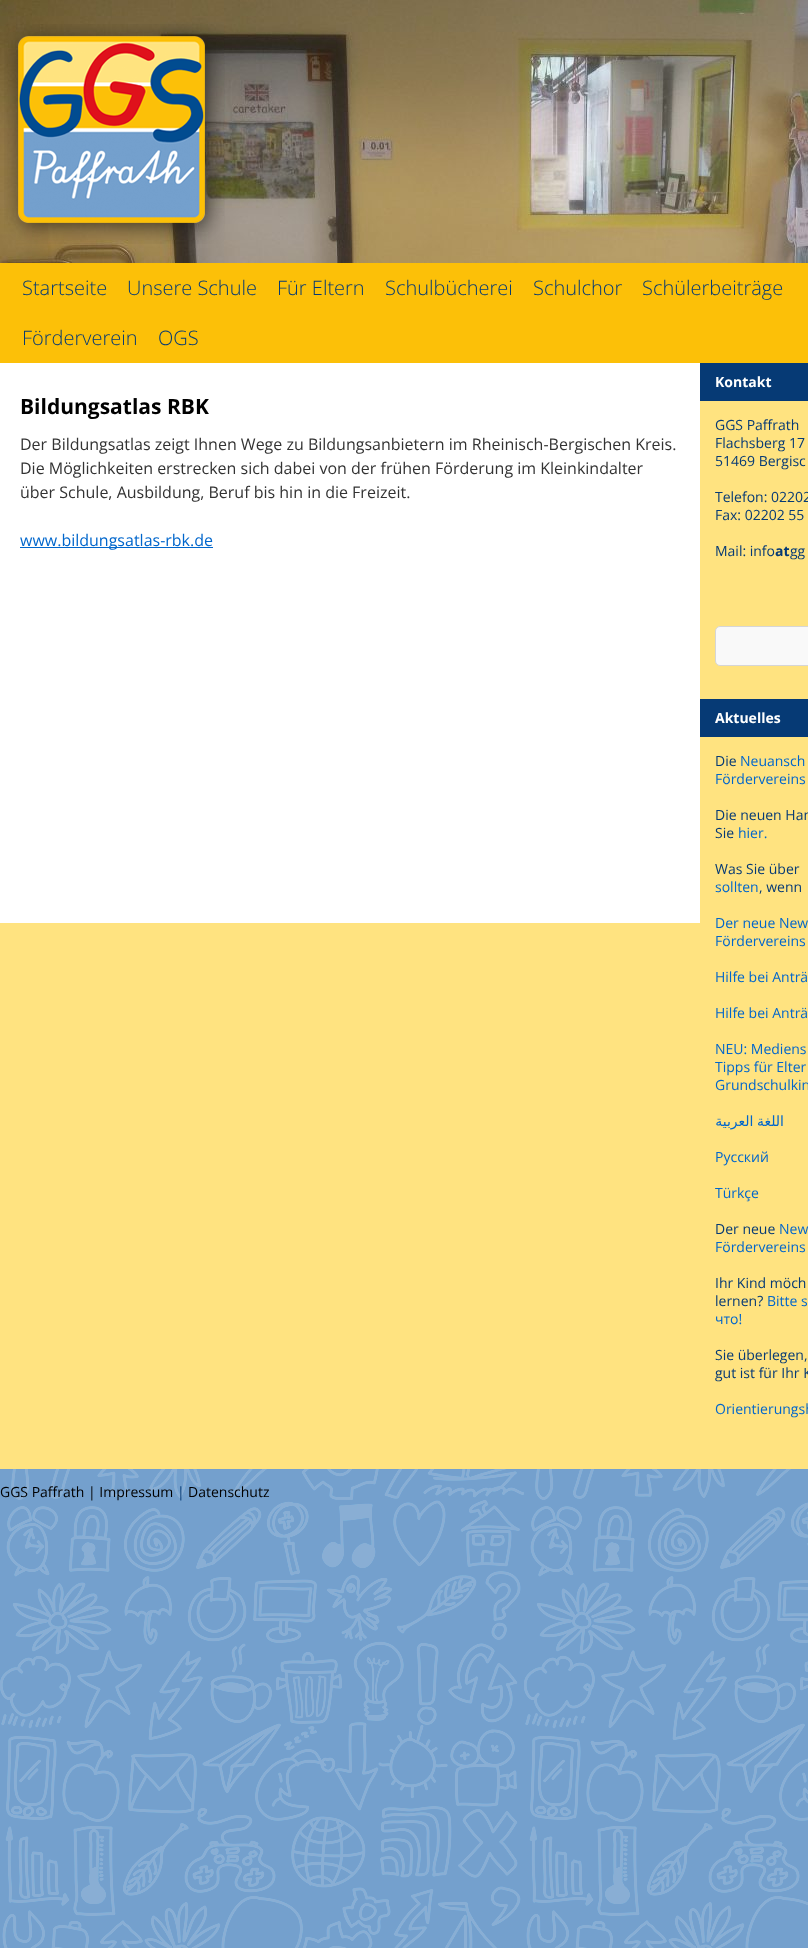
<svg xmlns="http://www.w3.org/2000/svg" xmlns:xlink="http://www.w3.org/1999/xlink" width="808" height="1948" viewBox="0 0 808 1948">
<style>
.cls-1{font:300 20px Open Sans;fill:#063a75}
.cls-2{font:bold 21px Open Sans;fill:#000000}
.cls-3{font:16px Open Sans;fill:#333333}
.cls-4{font:16px Open Sans;fill:#0066cc}
.cls-5{font:bold 14px Open Sans;fill:#ffffff}
.cls-6{font:14px Open Sans;fill:#063a75}
.cls-7{font:bold 14px Open Sans;fill:#063a75}
.cls-8{font:14px Open Sans;fill:#0066cc}
.cls-9{font:14px DejaVu Sans;direction:rtl;fill:#0066cc}
.cls-10{font:14px Open Sans;fill:#000000}
</style>
<rect width="100%" height="100%" fill="#ffffff"/>
<image xlink:href="image0.png" x="0" y="1469" width="808" height="479"/>
<image xlink:href="image1.png" x="0" y="0" width="808" height="263"/>
<image xlink:href="image2.png" x="4" y="24" width="221" height="220"/>
<rect fill="#fcc008" x="0" y="263" width="808" height="100"/>
<rect fill="#ffe380" x="0" y="401" width="808" height="1068"/>
<rect fill="#ffffff" x="0" y="401" width="700" height="522"/>
<rect fill="#0066cc" x="20" y="547" width="193" height="1"/>
<rect fill="#063a75" x="700" y="363" width="108" height="38"/>
<path fill="#f9f9f9" stroke="#d6d6d6" d="M720 626.5H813.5V665.5H720C717.5 665.5 715.5 663.5 715.5 661V631C715.5 628.5 717.5 626.5 720 626.5Z"/>
<rect fill="#063a75" x="700" y="699" width="108" height="38"/>
<text class="cls-1" x="22" y="295">Startseite</text>
<text class="cls-1" x="127" y="295">Unsere Schule</text>
<text class="cls-1" x="277" y="295">Für Eltern</text>
<text class="cls-1" x="385" y="295">Schulbücherei</text>
<text class="cls-1" x="533" y="295">Schulchor</text>
<text class="cls-1" x="642" y="295">Schülerbeiträge</text>
<text class="cls-1" x="22" y="345">Förderverein</text>
<text class="cls-1" x="158" y="345">OGS</text>
<text class="cls-2" x="20" y="414">Bildungsatlas RBK</text>
<text class="cls-3"><tspan x="20" y="450">Der Bildungsatlas zeigt Ihnen Wege zu Bildungsanbietern im Rheinisch-Bergischen Kreis.</tspan><tspan x="20" y="474">Die Möglichkeiten erstrecken sich dabei von der frühen Förderung im Kleinkindalter</tspan><tspan x="20" y="498">über Schule, Ausbildung, Beruf bis hin in die Freizeit.</tspan></text>
<text class="cls-4" x="20" y="546">www.bildungsatlas-rbk.de</text>
<text class="cls-5" x="715" y="387">Kontakt</text>
<text class="cls-6"><tspan x="715" y="430">GGS Paffrath</tspan><tspan x="715" y="448">Flachsberg 17</tspan><tspan x="715" y="466">51469 Bergisc</tspan></text>
<text class="cls-6"><tspan x="715" y="502">Telefon: 02202</tspan><tspan x="715" y="520">Fax: 02202 55</tspan></text>
<text class="cls-6" x="715" y="556">Mail: info</text>
<text class="cls-7" x="775" y="556">at</text>
<text class="cls-6" x="790" y="556">gg</text>
<text class="cls-5" x="715" y="723">Aktuelles</text>
<text class="cls-6" x="715" y="766">Die</text>
<text class="cls-8" x="740" y="766">Neuansch</text>
<text class="cls-8" x="715" y="784">Fördervereins</text>
<text class="cls-6"><tspan x="715" y="820">Die neuen Han</tspan><tspan x="715" y="838">Sie</tspan></text>
<text class="cls-8" x="738" y="838">hier.</text>
<text class="cls-6" x="715" y="874">Was Sie über</text>
<text class="cls-8" x="715" y="892">sollten</text>
<text class="cls-6" x="759" y="892">, wenn</text>
<text class="cls-8"><tspan x="715" y="928">Der neue New</tspan><tspan x="715" y="946">Fördervereins</tspan></text>
<text class="cls-8" x="715" y="982">Hilfe bei Anträ</text>
<text class="cls-8" x="715" y="1018">Hilfe bei Anträ</text>
<text class="cls-8"><tspan x="715" y="1054">NEU: Mediens</tspan><tspan x="715" y="1072">Tipps für Elter</tspan><tspan x="715" y="1090">Grundschulkin</tspan></text>
<text class="cls-9" x="784" y="1126" word-spacing="-1">اللغة العربية</text>
<text class="cls-8" x="715" y="1162">Русский</text>
<text class="cls-8" x="715" y="1198">Türkçe</text>
<text class="cls-6" x="715" y="1234">Der neue</text>
<text class="cls-8" x="779" y="1234">New</text>
<text class="cls-8" x="715" y="1252">Fördervereins</text>
<text class="cls-6"><tspan x="715" y="1288">Ihr Kind möch</tspan><tspan x="715" y="1306">lernen?</tspan></text>
<text class="cls-8" x="767" y="1306">Bitte s</text>
<text class="cls-8" x="715" y="1324">что!</text>
<text class="cls-6"><tspan x="715" y="1360">Sie überlegen,</tspan><tspan x="715" y="1378">gut ist für Ihr K</tspan></text>
<text class="cls-8" x="715" y="1414">Orientierungsh</text>
<text class="cls-10" x="0" y="1497">GGS Paffrath | Impressum</text>
<text class="cls-6" x="177" y="1497">|</text>
<text class="cls-10" x="188" y="1497">Datenschutz</text>
</svg>
